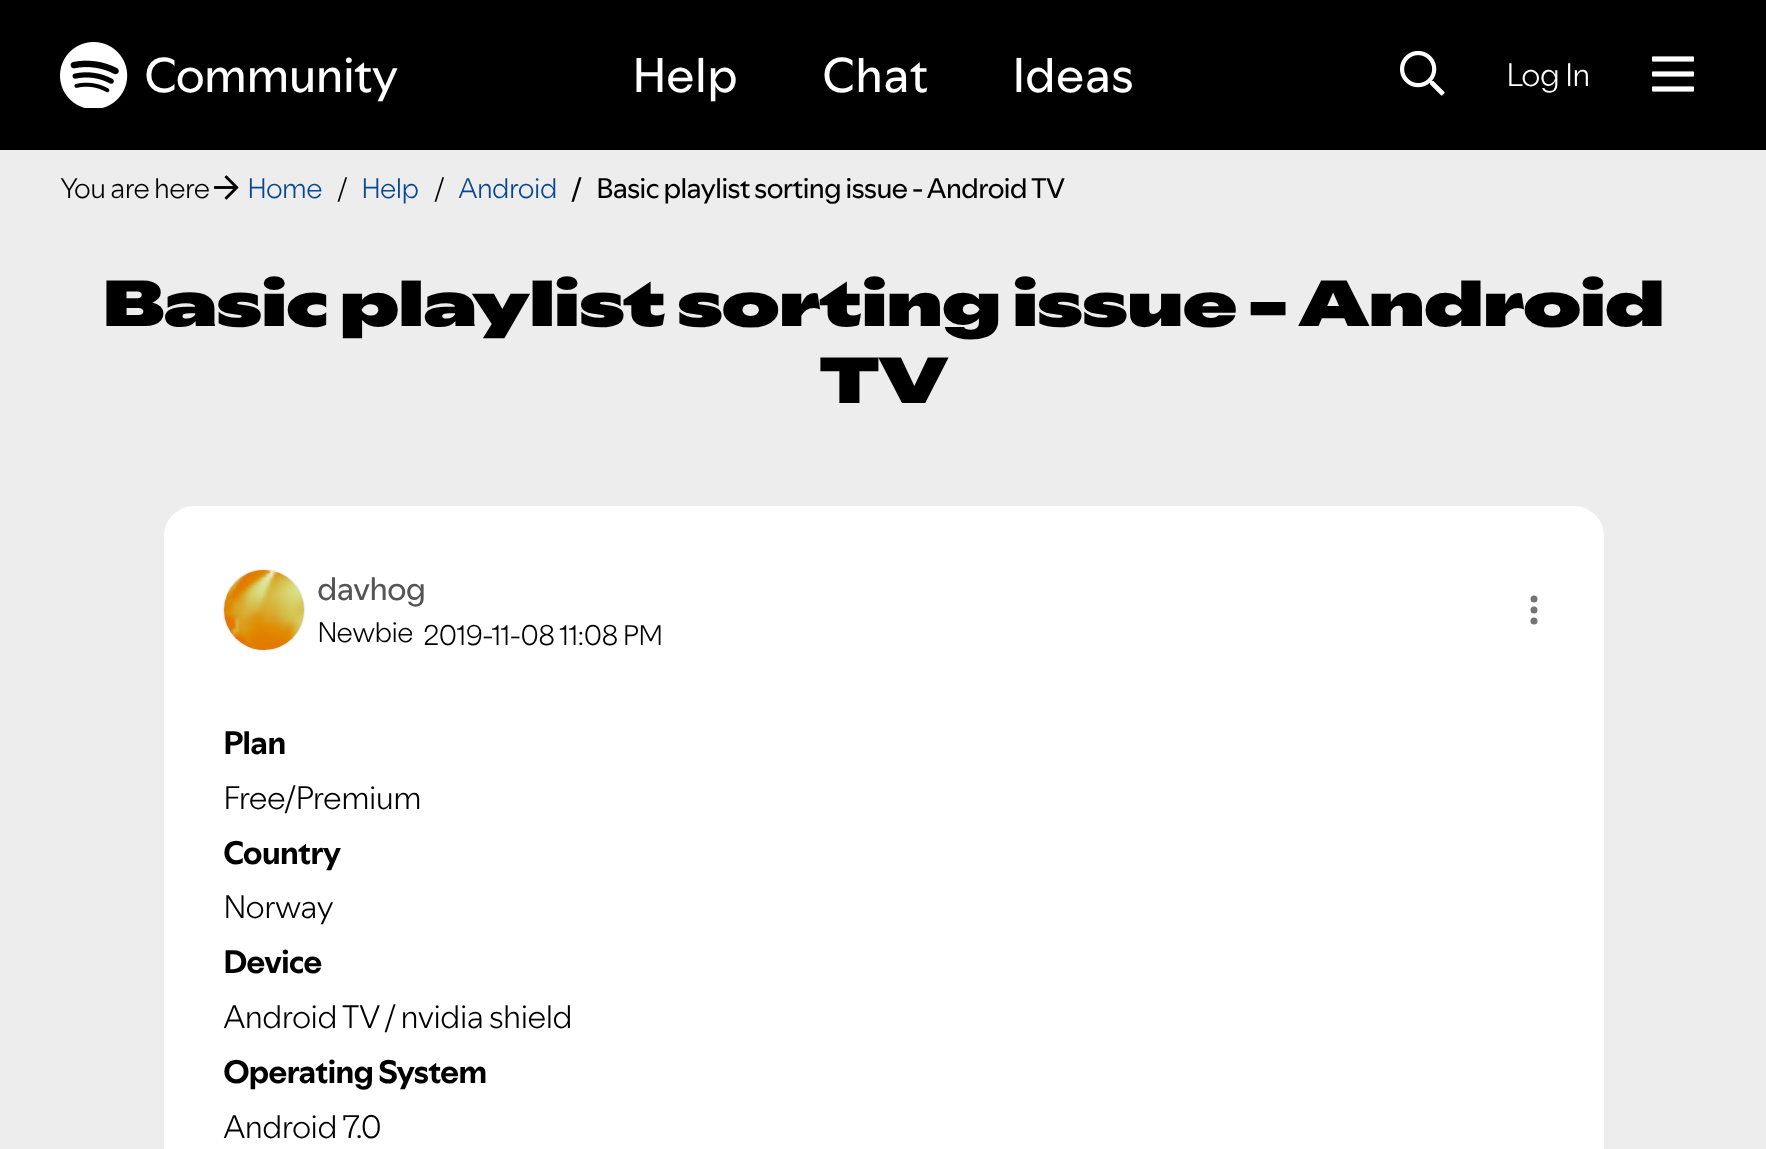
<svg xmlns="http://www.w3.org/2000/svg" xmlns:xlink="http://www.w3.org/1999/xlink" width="1766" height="1149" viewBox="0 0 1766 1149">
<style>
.cls-1{font:48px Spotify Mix;letter-spacing:-1px;fill:#ffffff}
.cls-2{font:48px Spotify Mix;fill:#ffffff}
.cls-3{font:300 32px Spotify Mix;letter-spacing:-1px;fill:#ffffff}
.cls-4{font:300 28px Spotify Mix;letter-spacing:-1px;fill:#000000}
.cls-5{font:300 28px Spotify Mix;letter-spacing:-1px;fill:#084791}
.cls-6{font:28px Spotify Mix;letter-spacing:-1px;fill:#000000}
.cls-7{font:900 64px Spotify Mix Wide;letter-spacing:-1px;fill:#000000}
.cls-8{font:32px Spotify Mix;letter-spacing:-1px;fill:#555555}
.cls-9{font:bold 32px Spotify Mix;letter-spacing:-1px;fill:#000000}
.cls-10{font:300 32px Spotify Mix;letter-spacing:-1px;fill:#000000}
</style>
<defs>
<clipPath id="clip1"><rect x="318" y="614" width="94" height="38"/></clipPath>
</defs>
<rect width="100%" height="100%" fill="#ededed"/>
<rect fill="#000000" x="0" y="0" width="1766" height="150"/>
<image xlink:href="image0.png" x="60" y="42" width="68" height="66"/>
<image xlink:href="image1.png" x="1400" y="50" width="45" height="46"/>
<image xlink:href="image2.png" x="1652" y="56" width="42" height="36"/>
<image xlink:href="image3.png" x="214" y="175" width="25" height="25"/>
<rect fill="#ffffff" x="164" y="506" width="1440" height="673" rx="30"/>
<rect fill="#c4c4c4" filter="blur(1px)" x="224" y="570" width="80" height="80" rx="40"/>
<image xlink:href="image4.png" x="224" y="570" width="80" height="80"/>
<circle fill="#747474" cx="1534" cy="599" r="3.5"/>
<circle fill="#747474" cx="1534" cy="610" r="3.5"/>
<circle fill="#747474" cx="1534" cy="621" r="3.5"/>
<text class="cls-1" x="144" y="92">Community</text>
<text class="cls-2" x="632" y="92">Help</text>
<text class="cls-2" x="822" y="92">Chat</text>
<text class="cls-2" x="1012" y="92">Ideas</text>
<text class="cls-3" x="1506" y="86">Log In</text>
<text class="cls-4" x="60" y="198">You are here</text>
<text class="cls-5" x="247" y="198">Home</text>
<text class="cls-4" x="337" y="198">/</text>
<text class="cls-5" x="361" y="198">Help</text>
<text class="cls-4" x="434" y="198">/</text>
<text class="cls-5" x="458" y="198">Android</text>
<text class="cls-6" x="571" y="198">/</text>
<text class="cls-6" x="596" y="198">Basic playlist sorting issue - Android TV</text>
<text class="cls-7" x="102" y="326">Basic playlist sorting issue - Android</text>
<text class="cls-7" x="819" y="403">TV</text>
<text class="cls-8" x="317" y="600">davhog</text>
<g clip-path="url(#clip1)">
<text class="cls-4" x="317" y="642">Newbie</text>
</g>
<text class="cls-4" x="423" y="645">2019-11-08</text>
<text class="cls-4" x="559" y="645">11:08 PM</text>
<text class="cls-9" x="223" y="754">Plan</text>
<text class="cls-10" x="223" y="809">Free/Premium</text>
<text class="cls-9" x="223" y="864">Country</text>
<text class="cls-10" x="223" y="918">Norway</text>
<text class="cls-9" x="223" y="973">Device</text>
<text class="cls-10" x="223" y="1028">Android TV / nvidia shield</text>
<text class="cls-9" x="223" y="1083">Operating System</text>
<text class="cls-10" x="223" y="1138">Android 7.0</text>
</svg>
